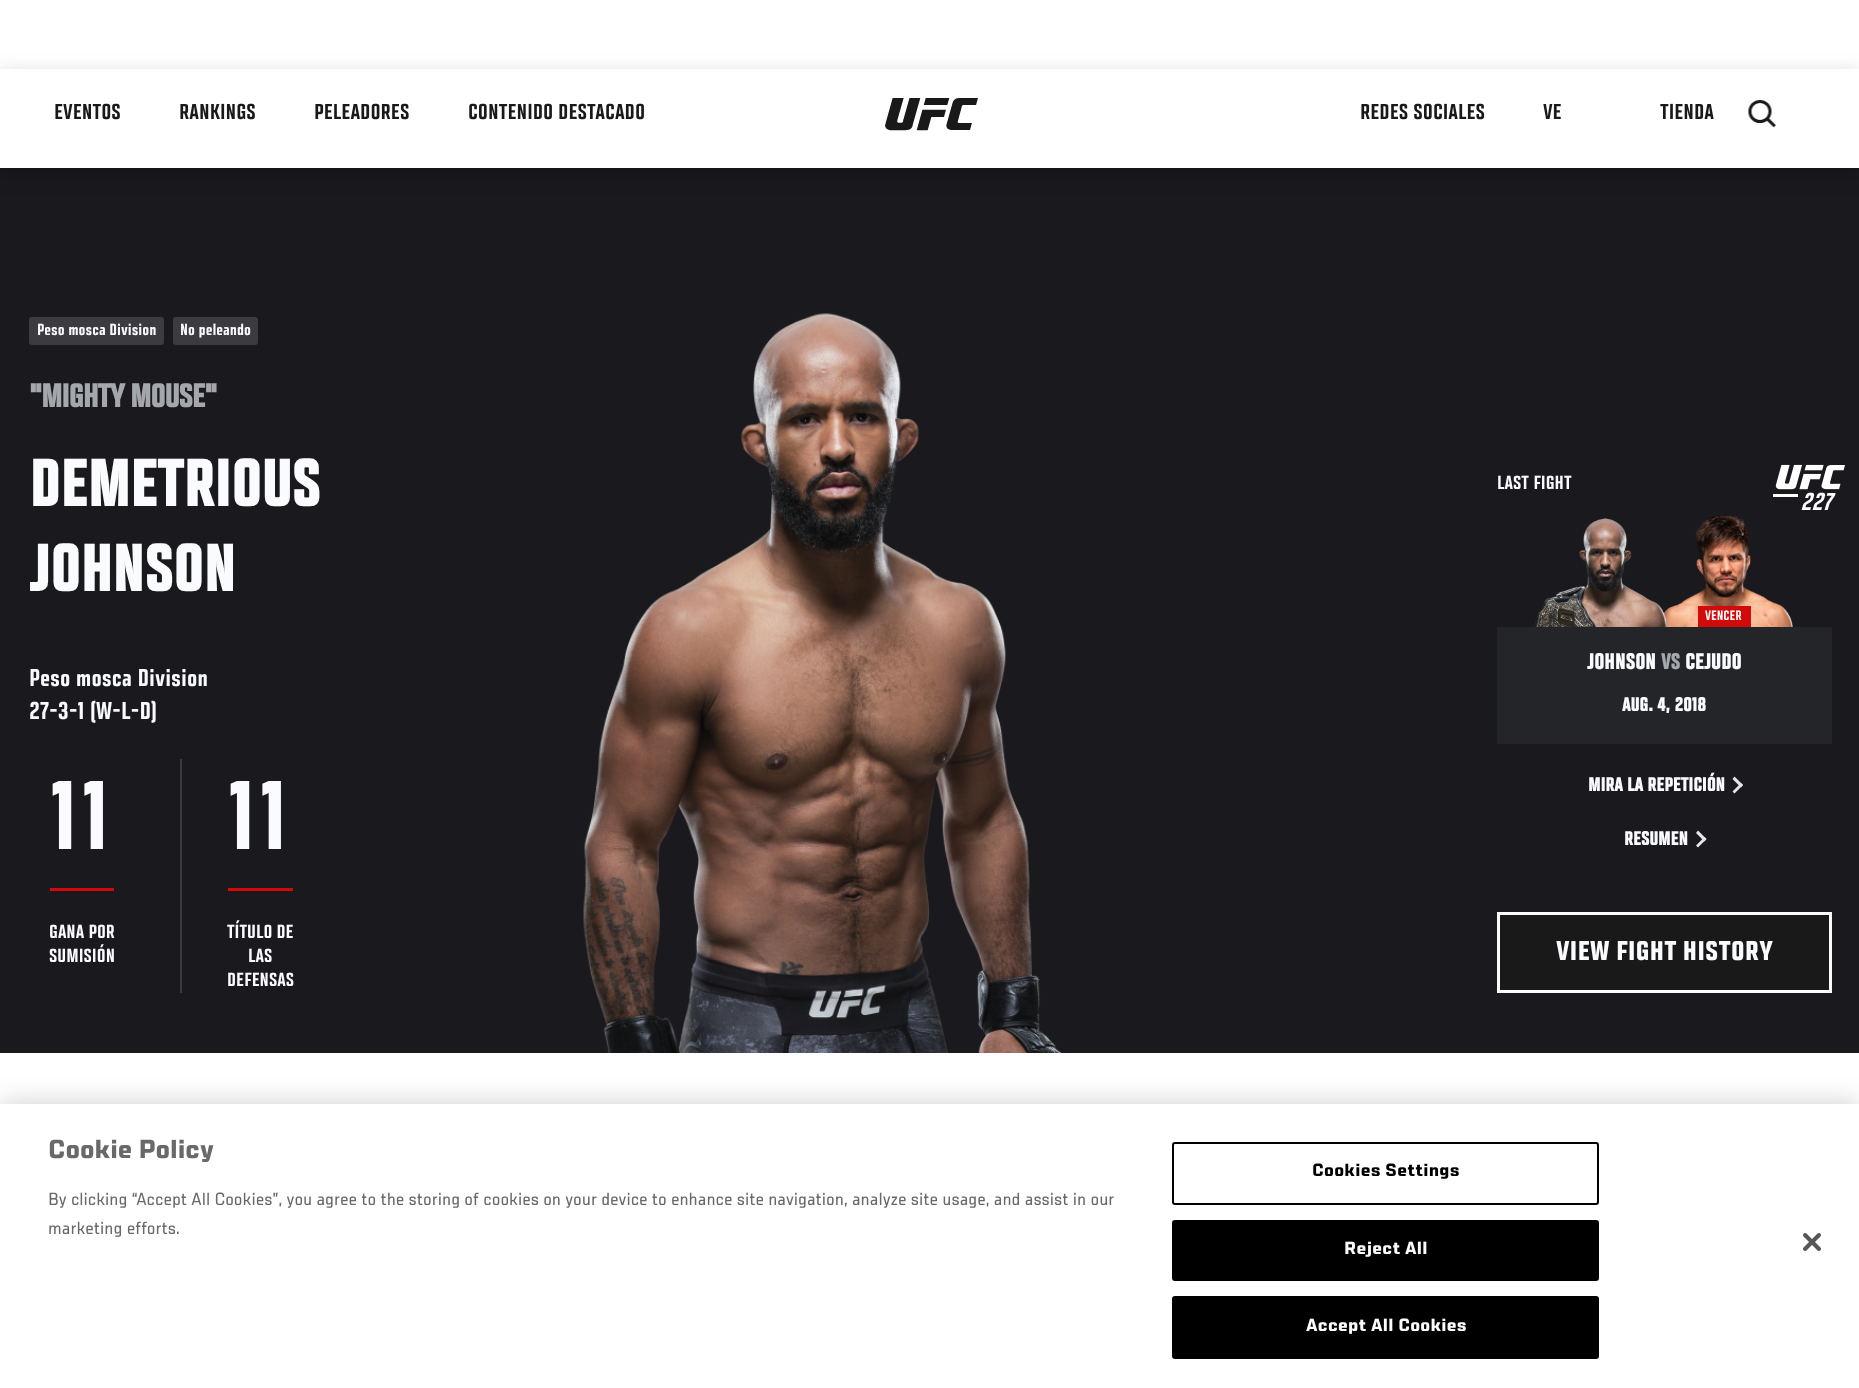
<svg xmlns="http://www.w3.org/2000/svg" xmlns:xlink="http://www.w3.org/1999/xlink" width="1859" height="1388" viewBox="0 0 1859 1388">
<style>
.cls-1{font:500 24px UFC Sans;fill:#191919}
.cls-2{font:500 18px UFC Sans;fill:#fafbfd}
.cls-3{font:bold 36px UFC Sans;letter-spacing:-1.1px;fill:#a4a7ac}
.cls-4{font:bold 72px UFC Sans;fill:#fafbfd}
.cls-5{font:500 27px UFC Sans;fill:#fafbfd}
.cls-6{font:500 108px UFC Sans;letter-spacing:4px;fill:#fafbfd}
.cls-7{font:500 21px UFC Sans;fill:#fafbfd}
.cls-8{font:italic 500 27px UFC Sans;fill:#fafbfd}
.cls-9{font:500 15px UFC Sans;fill:#fafbfd}
.cls-10{font:bold 24px UFC Sans;fill:#fafbfd}
.cls-11{font:bold 24px UFC Sans;fill:#a4a7ac}
.cls-12{font:bold 21px UFC Sans;fill:#fafbfd}
.cls-13{font:bold 30px 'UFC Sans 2';fill:#fafbfd}
.cls-14{font:bold 28.75px 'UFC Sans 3';fill:#696969}
.cls-15{font:19.5px UFC Sans;fill:#696969}
.cls-16{font:bold 19.5px 'UFC Sans 3';letter-spacing:0.25px;fill:#000000}
.cls-17{font:bold 19.5px 'UFC Sans 3';letter-spacing:0.25px;fill:#fafbfd}
</style>
<rect width="100%" height="100%" fill="#ffffff"/>
<rect fill="#19191e" x="0" y="168" width="1859" height="885"/>
<rect fill="#000000" fill-opacity="0.2" filter="blur(10.5px)" x="0" y="75" width="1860" height="99"/>
<rect fill="#ffffff" x="0" y="69" width="1859" height="99"/>
<image xlink:href="image0.png" x="885" y="98" width="93" height="33"/>
<image xlink:href="image1.png" x="1747" y="100" width="30" height="28"/>
<rect fill="#3c3c40" x="29" y="317" width="135" height="28" rx="3"/>
<rect fill="#3c3c40" x="173" y="317" width="85" height="28" rx="3"/>
<rect fill="#d20a0a" x="50" y="888" width="64" height="3"/>
<rect fill="#3b3b3f" x="180" y="759" width="2" height="234"/>
<rect fill="#d20a0a" x="228" y="888" width="65" height="3"/>
<image xlink:href="image2.png" x="583" y="313" width="479" height="740"/>
<image xlink:href="image5.png" x="1663" y="516" width="130" height="111"/>
<image xlink:href="image4.png" x="1534" y="518" width="133" height="109"/>
<rect fill="#d20a0a" x="1698" y="606" width="53" height="21"/>
<rect fill="#242529" x="1497" y="627" width="335" height="117"/>
<path fill="#e5e6e9" d="M1743 785L1734.5 793.5L1732.5 791.5L1741 783Z"/>
<path fill="#e5e6e9" d="M1743 785L1741 787.5L1732.5 779L1734.5 776.5Z"/>
<path fill="#e5e6e9" d="M1706.5 839L1698 847.5L1696 845.5L1704.5 837Z"/>
<path fill="#e5e6e9" d="M1706.5 839L1704.5 841.5L1696 833L1698 830.5Z"/>
<rect fill="#191919" stroke="#fafbfd" stroke-width="3" x="1498.5" y="913.5" width="332" height="78"/>
<rect fill="#000000" fill-opacity="0.2" filter="blur(13.5px)" x="0" y="1104" width="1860" height="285"/>
<rect fill="#ffffff" x="0" y="1104" width="1859" height="284"/>
<rect fill="none" stroke="#000000" stroke-width="2" x="1173" y="1143" width="425" height="61" rx="2"/>
<rect fill="#000000" stroke="#000000" stroke-width="2" x="1173" y="1221" width="425" height="59" rx="2"/>
<rect fill="#000000" stroke="#000000" stroke-width="2" x="1173" y="1297" width="425" height="61" rx="2"/>
<image xlink:href="image6.png" x="1803" y="1233" width="18" height="18"/>
<text class="cls-1" x="54" y="119">EVENTOS</text>
<text class="cls-1" x="179" y="119">RANKINGS</text>
<text class="cls-1" x="314" y="119">PELEADORES</text>
<text class="cls-1" x="468" y="119">CONTENIDO DESTACADO</text>
<text class="cls-1" x="1360" y="119">REDES SOCIALES</text>
<text class="cls-1" x="1543" y="119">VE</text>
<text class="cls-1" x="1660" y="119">TIENDA</text>
<text class="cls-2" x="37" y="335">Peso mosca Division</text>
<text class="cls-2" x="180" y="335">No peleando</text>
<text class="cls-3" x="29" y="407">"MIGHTY MOUSE"</text>
<text class="cls-4"><tspan x="29" y="506">DEMETRIOUS</tspan><tspan x="29" y="591">JOHNSON</tspan></text>
<text class="cls-5"><tspan x="29" y="686">Peso mosca Division</tspan><tspan x="29" y="719">27-3-1 (W-L-D)</tspan></text>
<text class="cls-6" x="50" y="849">11</text>
<text class="cls-7"><tspan x="49" y="938">GANA POR</tspan><tspan x="49" y="962">SUMISIÓN</tspan></text>
<text class="cls-6" x="228" y="849">11</text>
<text class="cls-7" x="227" y="938">TÍTULO DE</text>
<text class="cls-7" x="248" y="962">LAS</text>
<text class="cls-7" x="227" y="986">DEFENSAS</text>
<text class="cls-7" x="1497" y="489">LAST FIGHT</text>
<text class="cls-8" x="1802" y="510">227</text>
<image xlink:href="image3.png" x="1773" y="464" width="72" height="33"/>
<text class="cls-9" x="1705" y="620">VENCER</text>
<text class="cls-10" x="1587" y="669">JOHNSON</text>
<text class="cls-11" x="1661" y="669">VS</text>
<text class="cls-10" x="1685" y="669">CEJUDO</text>
<text class="cls-12" x="1622" y="711">AUG. 4, 2018</text>
<text class="cls-12" x="1588" y="791">MIRA LA REPETICIÓN</text>
<text class="cls-12" x="1624" y="845">RESUMEN</text>
<text class="cls-13" x="1556" y="960">VIEW FIGHT HISTORY</text>
<text class="cls-14" x="48" y="1158">Cookie Policy</text>
<text class="cls-15"><tspan x="48" y="1205">By clicking “Accept All Cookies”, you agree to the storing of cookies on your device to enhance site navigation, analyze site usage, and assist in our</tspan><tspan x="48" y="1234">marketing efforts.</tspan></text>
<text class="cls-16" x="1312" y="1176">Cookies Settings</text>
<text class="cls-17" x="1344" y="1254">Reject All</text>
<text class="cls-17" x="1306" y="1331">Accept All Cookies</text>
</svg>
